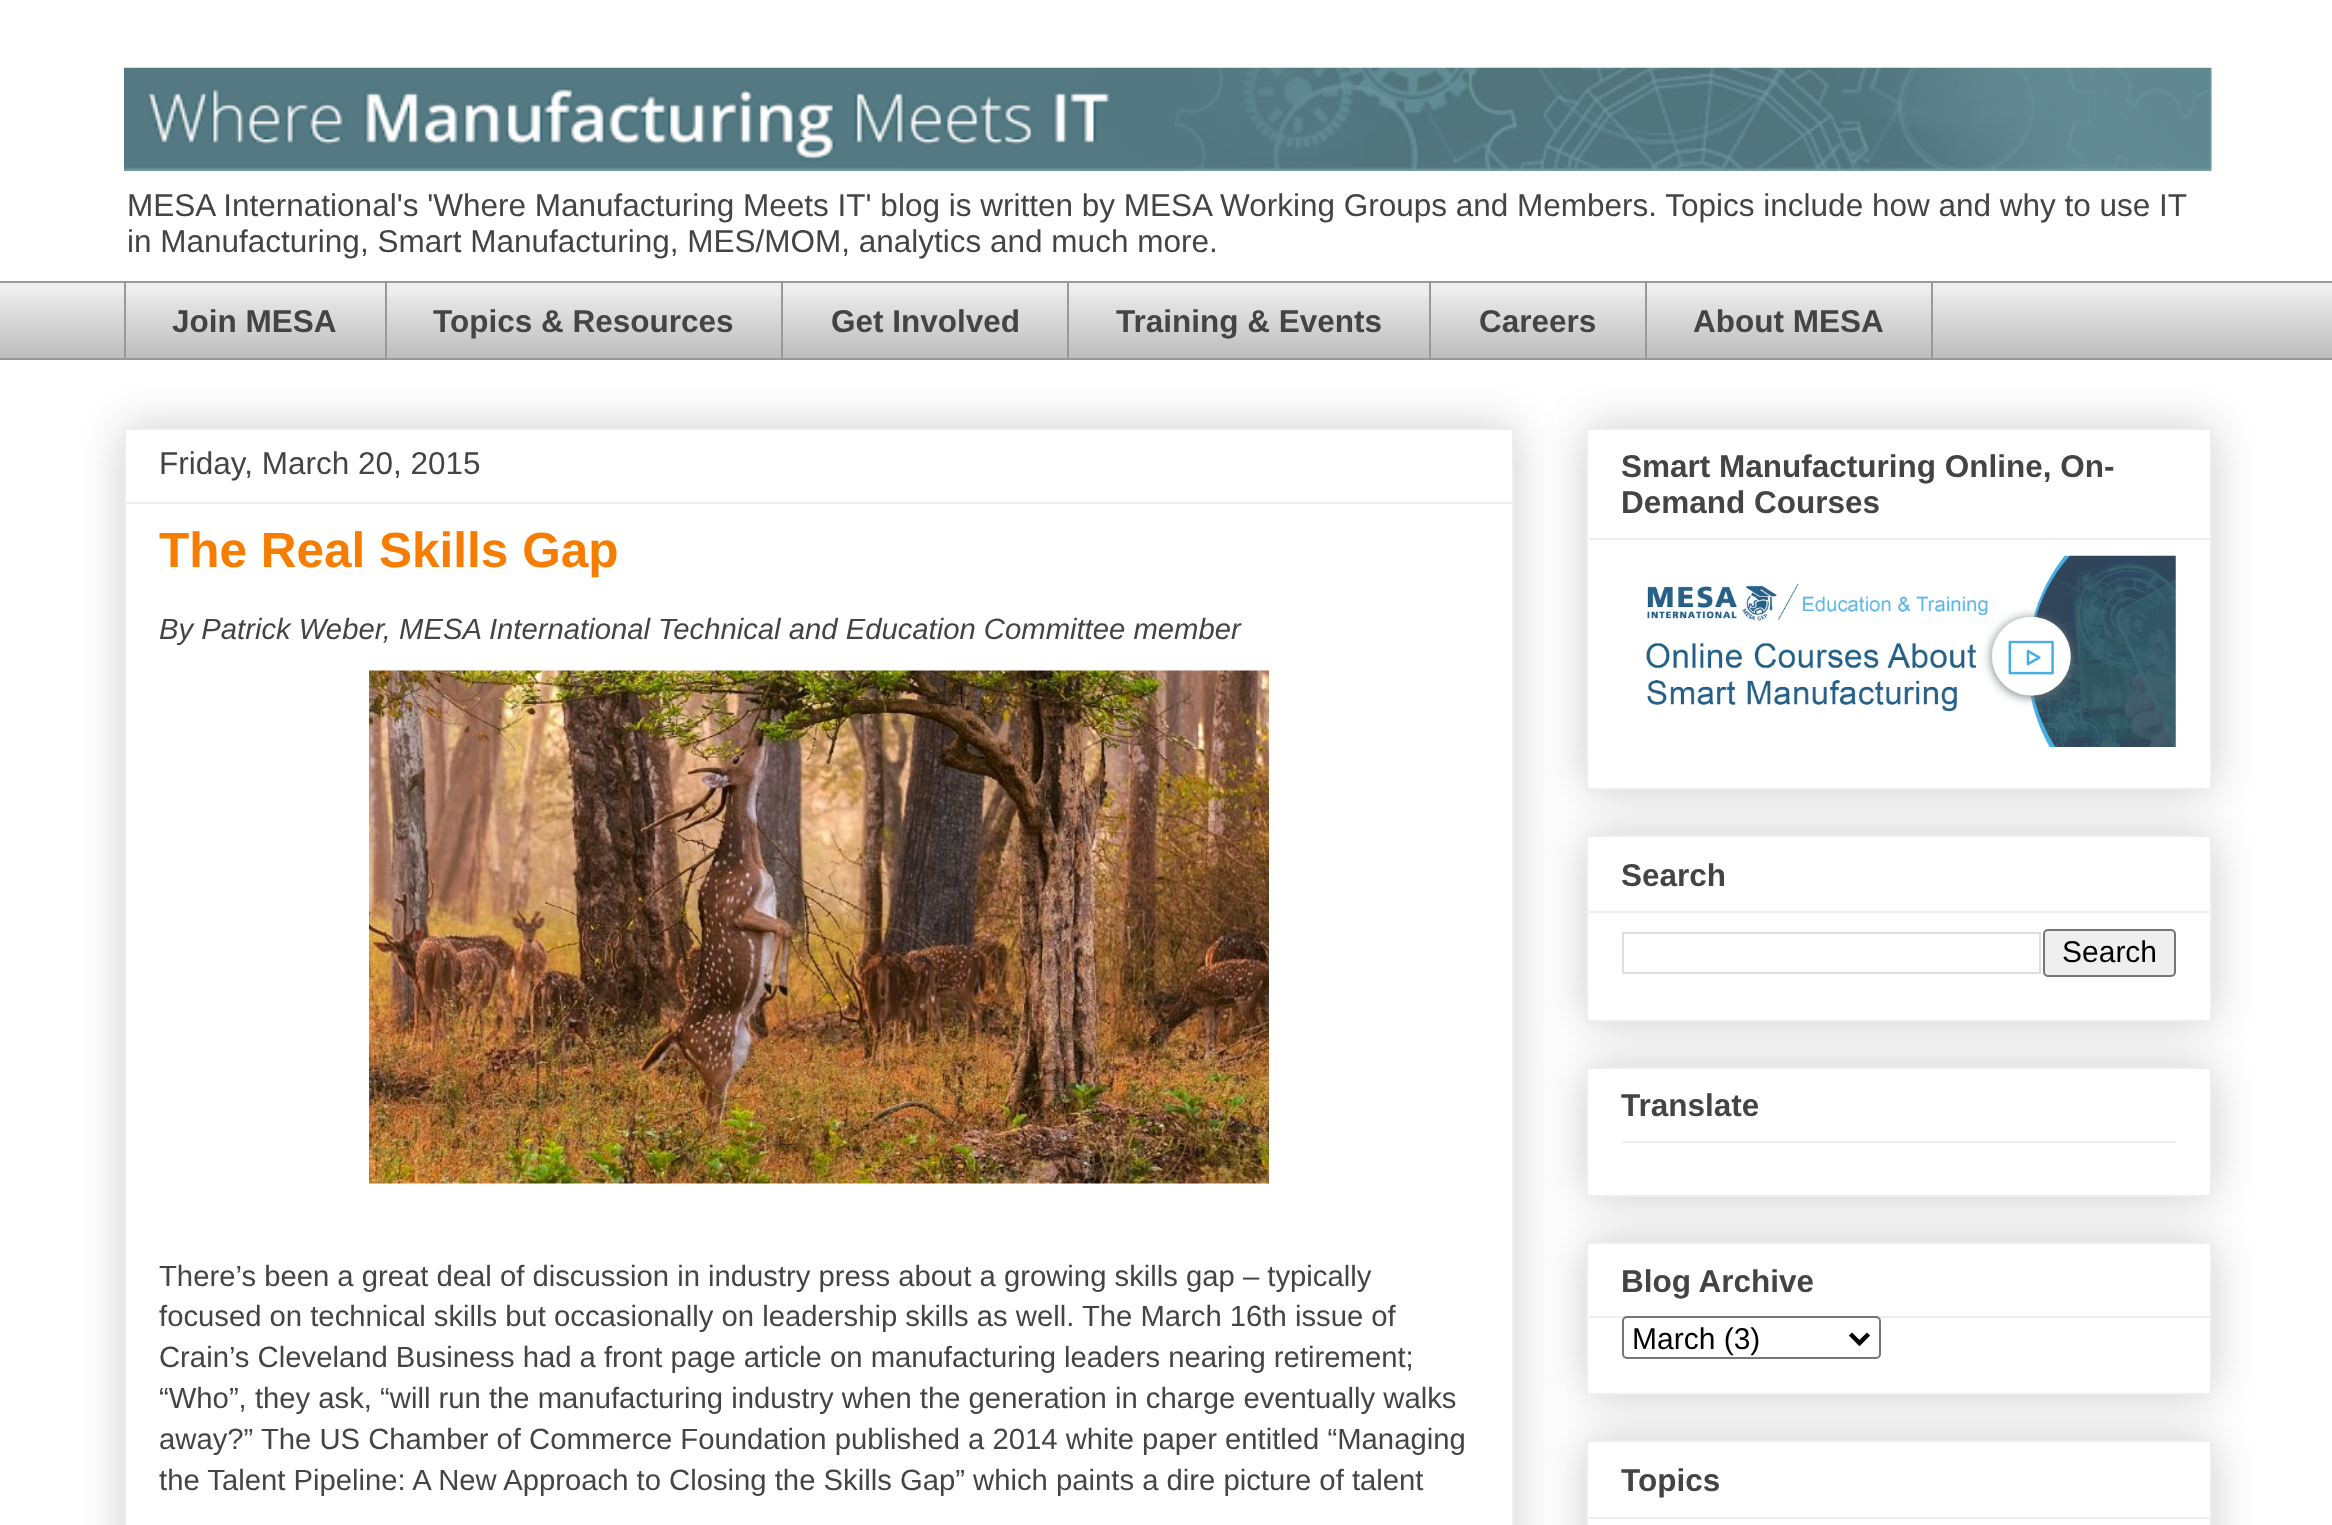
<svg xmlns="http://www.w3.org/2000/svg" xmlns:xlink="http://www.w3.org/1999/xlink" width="2332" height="1525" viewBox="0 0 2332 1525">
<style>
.cls-1{font:31.5px Liberation Sans;fill:#444444}
.cls-2{font:bold 31.5px Liberation Sans;fill:#444444}
.cls-3{font:bold 49.5px Liberation Sans;fill:#f67d00}
.cls-4{font:italic 29.25px Liberation Sans;fill:#444444}
.cls-5{font:29.25px Liberation Sans;fill:#444444}
.cls-6{font:30px Liberation Sans;fill:#000000}
</style>
<defs>
<clipPath id="clip1"><path d="M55 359H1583V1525H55ZM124 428H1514V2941H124Z" clip-rule="evenodd"/></clipPath>
</defs>
<rect width="100%" height="100%" fill="#ffffff"/>
<image xlink:href="image0.png" x="123" y="67" width="2089" height="104"/>
<rect fill="#eeeeee" x="0" y="283" width="2332" height="75"/>
<image xlink:href="image1.png" x="0" y="295" width="2332" height="63"/>
<rect fill="#999999" x="0" y="281" width="2332" height="2"/>
<rect fill="#999999" x="124" y="281" width="2" height="79"/>
<rect fill="#999999" x="385" y="281" width="2" height="79"/>
<rect fill="#999999" x="781" y="281" width="2" height="79"/>
<rect fill="#999999" x="1067" y="281" width="2" height="79"/>
<rect fill="#999999" x="1429" y="281" width="2" height="79"/>
<rect fill="none" stroke="#999999" stroke-width="2" x="1646" y="282" width="286" height="77"/>
<rect fill="#999999" x="0" y="358" width="2332" height="2"/>
<g clip-path="url(#clip1)">
<rect fill="#000000" fill-opacity="0.2" filter="blur(22.5px)" x="124" y="428" width="1390" height="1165"/>
</g>
<rect fill="none" stroke="#eeeeee" stroke-width="2" x="125" y="429" width="1388" height="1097"/>
<rect fill="#eeeeee" x="126" y="502" width="1386" height="2"/>
<image xlink:href="image2.png" x="369" y="670" width="900" height="514"/>
<rect fill="#000000" fill-opacity="0.2" filter="blur(22.5px)" x="1586" y="428" width="626" height="362"/>
<rect fill="#ffffff" stroke="#eeeeee" stroke-width="2" x="1587" y="429" width="624" height="360"/>
<rect fill="#eeeeee" x="1589" y="538" width="621" height="2"/>
<image xlink:href="image3.png" x="1646" y="555" width="530" height="192"/>
<rect fill="#000000" fill-opacity="0.2" filter="blur(22.5px)" x="1586" y="835" width="626" height="187"/>
<rect fill="#ffffff" stroke="#eeeeee" stroke-width="2" x="1587" y="836" width="624" height="185"/>
<rect fill="#eeeeee" x="1589" y="911" width="621" height="2"/>
<rect fill="none" stroke="#dddddd" stroke-width="2" x="1623" y="933" width="417" height="40"/>
<rect fill="#efefef" stroke="#767676" stroke-width="2" x="2044" y="930" width="131" height="46" rx="4"/>
<rect fill="#000000" fill-opacity="0.2" filter="blur(22.5px)" x="1586" y="1067" width="626" height="130"/>
<rect fill="#ffffff" stroke="#eeeeee" stroke-width="2" x="1587" y="1068" width="624" height="128"/>
<rect fill="#eeeeee" x="1622" y="1141" width="554" height="2"/>
<rect fill="#000000" fill-opacity="0.2" filter="blur(22.5px)" x="1586" y="1242" width="626" height="153"/>
<rect fill="#ffffff" stroke="#eeeeee" stroke-width="2" x="1587" y="1243" width="624" height="151"/>
<rect fill="#eeeeee" x="1589" y="1316" width="621" height="2"/>
<rect fill="#ffffff" stroke="#767676" stroke-width="2" x="1623" y="1317" width="257" height="41" rx="4"/>
<path fill="none" stroke="#000000" stroke-width="4.5" d="M1850.5 1334L1859.5 1343L1868.5 1334"/>
<rect fill="#000000" fill-opacity="0.2" filter="blur(22.5px)" x="1586" y="1440" width="626" height="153"/>
<rect fill="#ffffff" stroke="#eeeeee" stroke-width="2" x="1587" y="1441" width="624" height="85"/>
<rect fill="#eeeeee" x="1589" y="1517" width="621" height="2"/>
<text class="cls-1"><tspan x="127" y="216">MESA International's 'Where Manufacturing Meets IT' blog is written by MESA Working Groups and Members. Topics include how and why to use IT</tspan><tspan x="127" y="252">in Manufacturing, Smart Manufacturing, MES/MOM, analytics and much more.</tspan></text>
<text class="cls-2" x="172" y="332">Join MESA</text>
<text class="cls-2" x="433" y="332">Topics &amp; Resources</text>
<text class="cls-2" x="831" y="332">Get Involved</text>
<text class="cls-2" x="1116" y="332">Training &amp; Events</text>
<text class="cls-2" x="1479" y="332">Careers</text>
<text class="cls-2" x="1693" y="332">About MESA</text>
<text class="cls-1" x="159" y="474">Friday, March 20, 2015</text>
<text class="cls-3" x="159" y="567">The Real Skills Gap</text>
<text class="cls-4" x="159" y="639">By Patrick Weber, MESA International Technical and Education Committee member</text>
<text class="cls-5"><tspan x="159" y="1286">There’s been a great deal of discussion in industry press about a growing skills gap – typically</tspan><tspan x="159" y="1326">focused on technical skills but occasionally on leadership skills as well. The March 16th issue of</tspan><tspan x="159" y="1367">Crain’s Cleveland Business had a front page article on manufacturing leaders nearing retirement;</tspan><tspan x="159" y="1408">“Who”, they ask, “will run the manufacturing industry when the generation in charge eventually walks</tspan><tspan x="159" y="1449">away?” The US Chamber of Commerce Foundation published a 2014 white paper entitled “Managing</tspan><tspan x="159" y="1490">the Talent Pipeline: A New Approach to Closing the Skills Gap” which paints a dire picture of talent</tspan></text>
<text class="cls-2"><tspan x="1621" y="477">Smart Manufacturing Online, On-</tspan><tspan x="1621" y="513">Demand Courses</tspan></text>
<text class="cls-2" x="1621" y="886">Search</text>
<text class="cls-6" x="2062" y="962">Search</text>
<text class="cls-2" x="1621" y="1116">Translate</text>
<text class="cls-2" x="1621" y="1292">Blog Archive</text>
<text class="cls-6" x="1632" y="1349">March (3)</text>
<text class="cls-2" x="1621" y="1491">Topics</text>
</svg>
